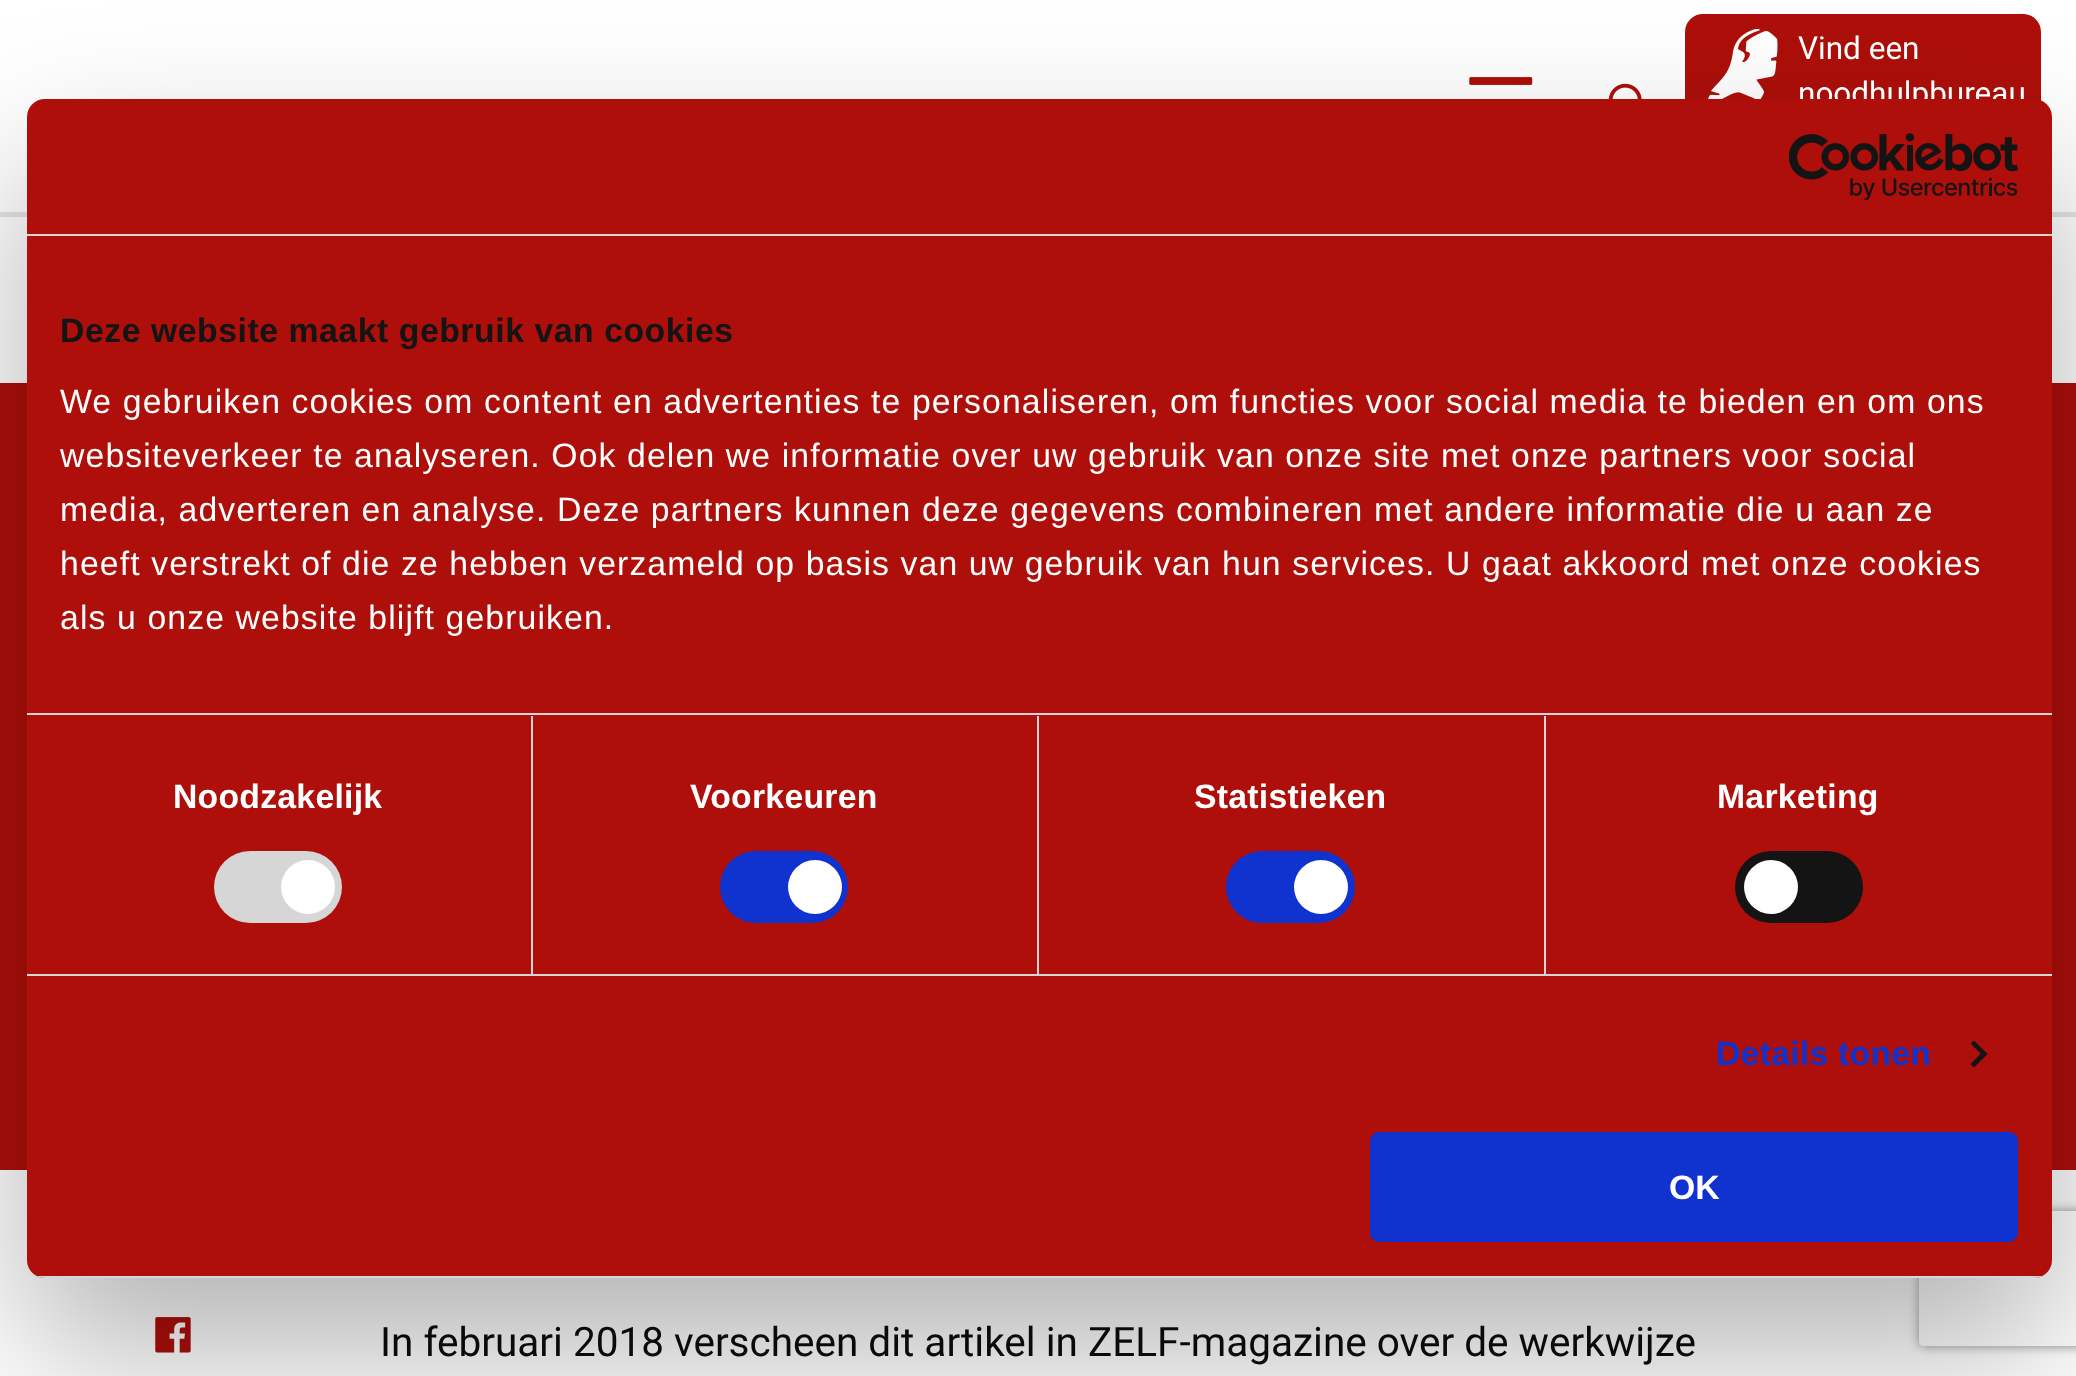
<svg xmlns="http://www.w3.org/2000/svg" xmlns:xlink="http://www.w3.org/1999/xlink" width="2076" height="1376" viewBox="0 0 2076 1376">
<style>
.cls-1{font:31.5px Roboto;fill:#ffffff}
.cls-2{font:bold 33.75px Liberation Sans;letter-spacing:0.55px;fill:#141414}
.cls-3{font:33.75px Liberation Sans;letter-spacing:1.12px;fill:#ffffff}
.cls-4{font:bold 33.75px Liberation Sans;letter-spacing:0.25px;fill:#ffffff}
.cls-5{font:bold 33.75px Liberation Sans;letter-spacing:0.25px;fill:#1032cf}
.cls-6{font:bold 33.75px Liberation Sans;fill:#ffffff}
.cls-7{font:40.5px Roboto;fill:#0a0a0a}
</style>
<defs>
<clipPath id="clip1"><path d="M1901 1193H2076V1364H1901ZM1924 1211H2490C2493 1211 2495 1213 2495 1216V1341C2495 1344 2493 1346 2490 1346H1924C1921 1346 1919 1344 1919 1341V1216C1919 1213 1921 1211 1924 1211Z" clip-rule="evenodd"/></clipPath>
<clipPath id="clip2"><rect x="27" y="99" width="2025" height="1179" rx="18"/></clipPath>
</defs>
<rect width="100%" height="100%" fill="#ffffff"/>
<rect fill="#e4e4e4" x="0" y="212" width="2076" height="5"/>
<image xlink:href="image0.png" x="1469" y="77" width="64" height="8"/>
<rect fill="#ae0f0a" stroke="#ae0f0a" stroke-width="5" x="1687.5" y="16.5" width="351" height="107" rx="15.5"/>
<image xlink:href="image1.png" x="1708" y="29" width="70" height="70"/>
<image xlink:href="image2.png" x="1608" y="83" width="34" height="16"/>
<rect fill="#ae0f0a" x="0" y="383" width="2076" height="787"/>
<image xlink:href="image4.png" x="155" y="1317" width="36" height="36"/>
<rect fill="#000000" fill-opacity="0.3" filter="blur(76.5px)" x="27" y="171" width="2025" height="1179" rx="18"/>
<g clip-path="url(#clip1)">
<rect fill="#808080" filter="blur(5.5px)" x="1919" y="1211" width="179" height="135" rx="5"/>
</g>
<text class="cls-1"><tspan x="1798" y="59">Vind een</tspan><tspan x="1798" y="104">noodhulpbureau</tspan></text>
<rect fill="#ae0f0a" x="27" y="99" width="2025" height="1179" rx="18"/>
<rect fill="#d6d6d6" x="27" y="234" width="2025" height="2"/>
<image xlink:href="image3.png" x="1789" y="133" width="229" height="67"/>
<rect fill="#d6d6d6" x="27" y="713" width="2025" height="2"/>
<text class="cls-2" x="60" y="342">Deze website maakt gebruik van cookies</text>
<text class="cls-3"><tspan x="60" y="413">We gebruiken cookies om content en advertenties te personaliseren, om functies voor social media te bieden en om ons</tspan><tspan x="60" y="467">websiteverkeer te analyseren. Ook delen we informatie over uw gebruik van onze site met onze partners voor social</tspan><tspan x="60" y="521">media, adverteren en analyse. Deze partners kunnen deze gegevens combineren met andere informatie die u aan ze</tspan><tspan x="60" y="575">heeft verstrekt of die ze hebben verzameld op basis van uw gebruik van hun services. U gaat akkoord met onze cookies</tspan><tspan x="60" y="629">als u onze website blijft gebruiken.</tspan></text>
<rect fill="#d6d6d6" x="27" y="974" width="2025" height="2"/>
<rect fill="#d6d6d6" x="531" y="716" width="2" height="258"/>
<text class="cls-4" x="173" y="808">Noodzakelijk</text>
<rect fill="#d6d6d6" x="214" y="851" width="128" height="72" rx="36"/>
<circle fill="#ffffff" cx="308" cy="887" r="27"/>
<rect fill="#d6d6d6" x="1037" y="716" width="2" height="258"/>
<text class="cls-4" x="690" y="808">Voorkeuren</text>
<rect fill="#1032cf" x="720" y="851" width="128" height="72" rx="36"/>
<circle fill="#ffffff" cx="815" cy="887" r="27"/>
<rect fill="#d6d6d6" x="1544" y="716" width="2" height="258"/>
<text class="cls-4" x="1194" y="808">Statistieken</text>
<rect fill="#1032cf" x="1226" y="851" width="129" height="72" rx="36"/>
<circle fill="#ffffff" cx="1321" cy="887" r="27"/>
<text class="cls-4" x="1717" y="808">Marketing</text>
<rect fill="#141414" x="1735" y="851" width="128" height="72" rx="36"/>
<circle fill="#ffffff" cx="1771" cy="887" r="27"/>
<text class="cls-5" x="1716" y="1065">Details tonen</text>
<path fill="#141414" d="M1974 1040.5L1987.5 1054L1984 1057L1970.5 1043.5Z"/>
<path fill="#141414" d="M1984 1050.5L1987.5 1054L1974 1067.5L1970.5 1064Z"/>
<g clip-path="url(#clip2)">
<rect fill="#d6d6d6" x="37" y="1276" width="2005" height="2"/>
</g>
<rect fill="#1032cf" stroke="#1032cf" stroke-width="5" x="1372.5" y="1134.5" width="643" height="105" rx="6.5"/>
<text class="cls-6" x="1669" y="1199">OK</text>
<text class="cls-7" x="380" y="1356">In februari 2018 verscheen dit artikel in ZELF-magazine over de werkwijze</text>
</svg>
